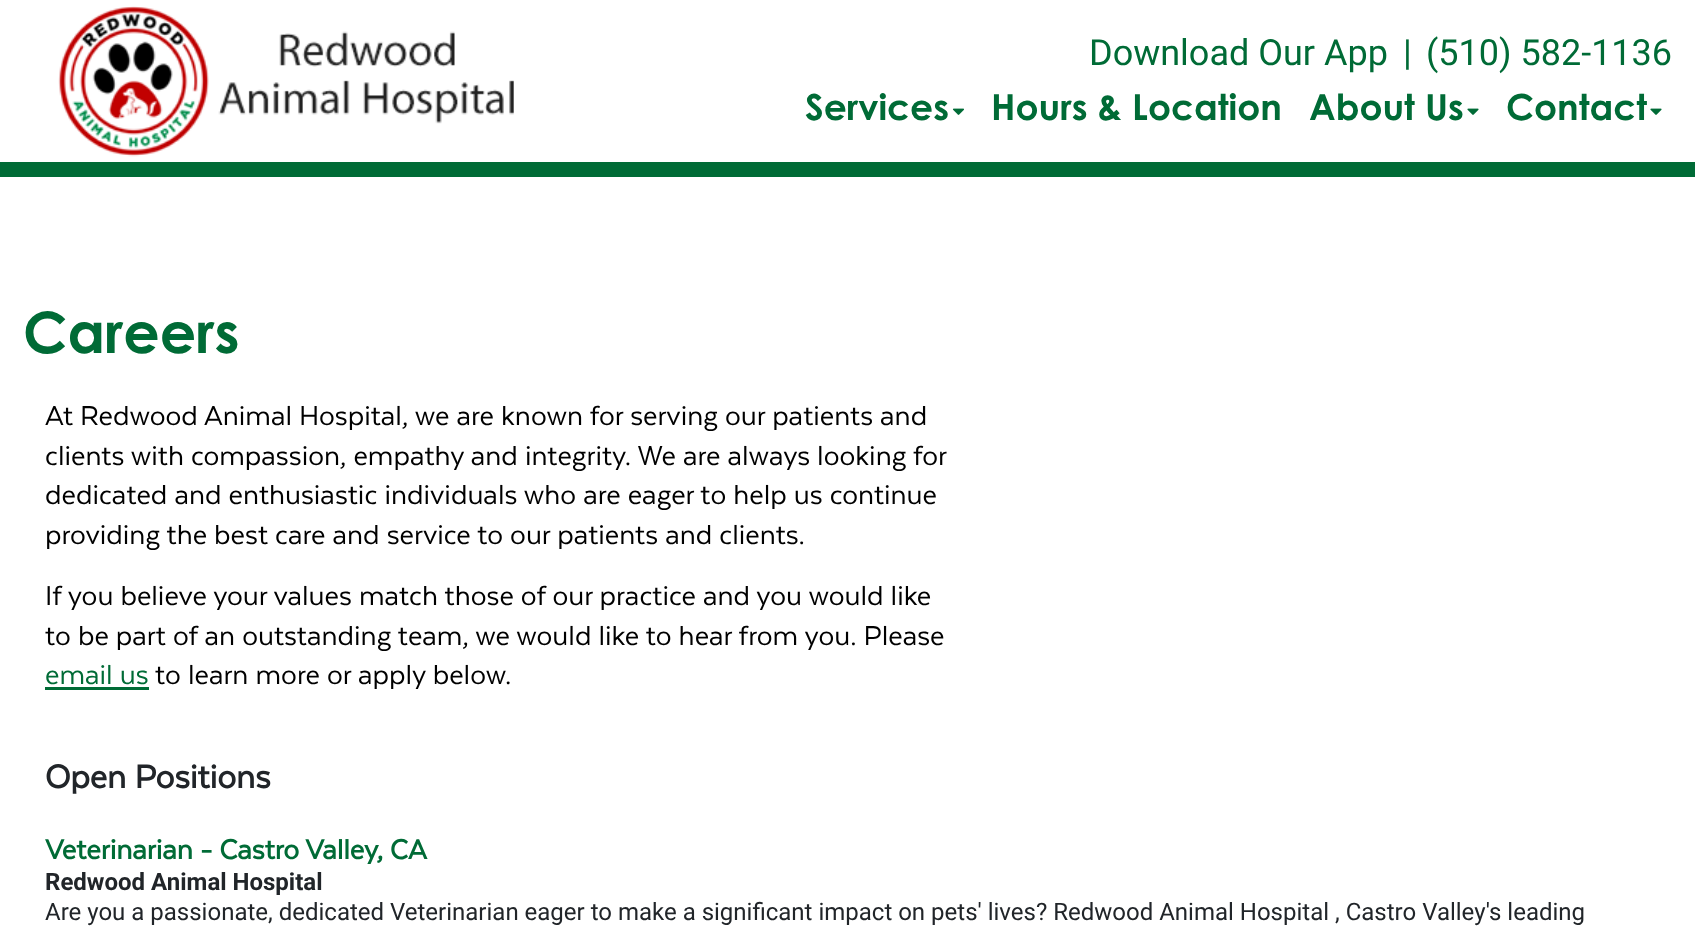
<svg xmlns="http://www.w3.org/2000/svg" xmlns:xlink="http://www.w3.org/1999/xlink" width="1695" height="944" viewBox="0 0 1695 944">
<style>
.cls-1{font:36px Roboto;fill:#006b36}
.cls-2{font:bold 36px Century Gothic;fill:#006b36}
.cls-3{font:bold 57px Century Gothic;fill:#006b36}
.cls-4{font:31.5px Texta;fill:#000000}
.cls-5{font:31.5px Texta;fill:#006b36}
.cls-6{font:bold 37.5px Texta;fill:#212529}
.cls-7{font:bold 31.5px Texta;fill:#006b36}
.cls-8{font:bold 24px Roboto;fill:#212529}
.cls-9{font:24px Roboto;fill:#212529}
</style>
<rect width="100%" height="100%" fill="#ffffff"/>
<rect fill="#006b36" x="0" y="162" width="1695" height="15"/>
<image xlink:href="image0.png" x="58" y="6" width="456" height="151"/>
<image xlink:href="image1.png" x="952" y="108" width="12" height="7"/>
<image xlink:href="image2.png" x="1467" y="108" width="12" height="7"/>
<image xlink:href="image2.png" x="1650" y="108" width="12" height="7"/>
<rect fill="#006b36" x="45" y="687" width="104" height="3"/>
<text class="cls-1" x="1089" y="65">Download Our App</text>
<text class="cls-1" x="1403" y="65">|</text>
<text class="cls-1" x="1426" y="65">(510) 582-1136</text>
<text class="cls-2" x="805" y="120">Services</text>
<text class="cls-2" x="991" y="120">Hours &amp; Location</text>
<text class="cls-2" x="1309" y="120">About Us</text>
<text class="cls-2" x="1506" y="120">Contact</text>
<text class="cls-3" x="23" y="353">Careers</text>
<text class="cls-4"><tspan x="45" y="425">At Redwood Animal Hospital, we are known for serving our patients and</tspan><tspan x="45" y="465">clients with compassion, empathy and integrity. We are always looking for</tspan><tspan x="45" y="504">dedicated and enthusiastic individuals who are eager to help us continue</tspan><tspan x="45" y="544">providing the best care and service to our patients and clients.</tspan><tspan x="45" y="605">If you believe your values match those of our practice and you would like</tspan><tspan x="45" y="645">to be part of an outstanding team, we would like to hear from you. Please</tspan></text>
<text class="cls-5" x="45" y="684">email us</text>
<text class="cls-4" x="155" y="684">to learn more or apply below.</text>
<text class="cls-6" x="45" y="788">Open Positions</text>
<text class="cls-7" x="45" y="859">Veterinarian - Castro Valley, CA</text>
<text class="cls-8" x="45" y="890">Redwood Animal Hospital</text>
<text class="cls-9" x="45" y="920">Are you a passionate, dedicated Veterinarian eager to make a significant impact on pets' lives? Redwood Animal Hospital , Castro Valley's leading</text>
</svg>
